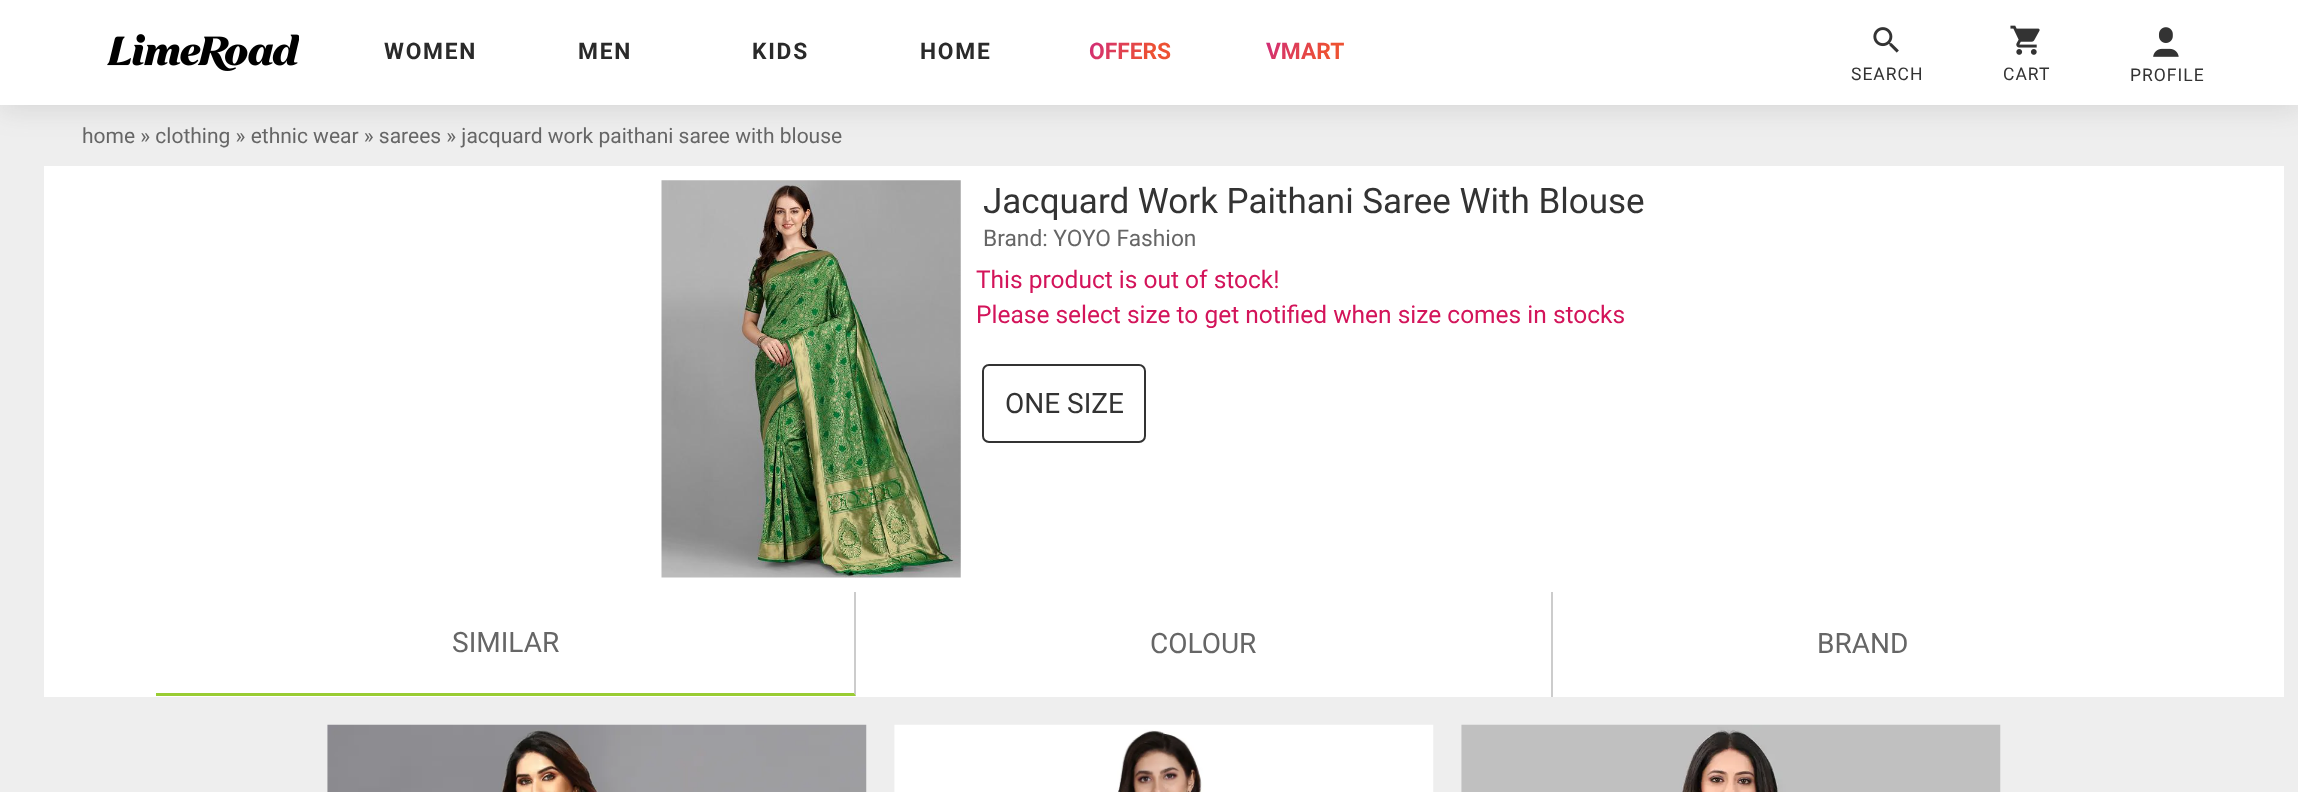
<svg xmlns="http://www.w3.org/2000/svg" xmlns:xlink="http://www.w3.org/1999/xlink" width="2298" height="792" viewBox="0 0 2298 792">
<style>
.cls-1{font:bold 22.75px Roboto;letter-spacing:1.75px;fill:#2a2a2a}
.cls-2{font:bold 22.75px Roboto;fill:url(#g1)}
.cls-3{font:bold 22.75px Roboto;fill:url(#g2)}
.cls-4{font:17.5px Roboto;letter-spacing:1px;fill:#333333}
.cls-5{font:21px Roboto;fill:#666666}
.cls-6{font:35px Roboto;fill:#333333}
.cls-7{font:22.75px Roboto;fill:#666666}
.cls-8{font:24.5px Roboto;fill:#d3145a}
.cls-9{font:28px Roboto;fill:#333333}
.cls-10{font:28px Roboto;fill:#666666}
</style>
<defs>
<linearGradient id="g1" gradientUnits="userSpaceOnUse" x1="1092" y1="27" x2="1165" y2="74"><stop offset="0" stop-color="#ce297e"/><stop offset="0.73" stop-color="#ed5133"/></linearGradient>
<linearGradient id="g2" gradientUnits="userSpaceOnUse" x1="1269" y1="28" x2="1339" y2="73"><stop offset="0" stop-color="#ce297e"/><stop offset="0.73" stop-color="#ed5133"/></linearGradient>
</defs>
<rect width="100%" height="100%" fill="#eeeeee"/>
<rect fill="#555555" fill-opacity="0.16" filter="blur(14px)" x="0" y="4" width="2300" height="105"/>
<rect fill="#ffffff" x="0" y="0" width="2298" height="105"/>
<image xlink:href="image0.png" x="107" y="34" width="192" height="37"/>
<image xlink:href="image1.png" x="1873" y="27" width="26" height="26"/>
<image xlink:href="image2.png" x="2010" y="25" width="30" height="30"/>
<image xlink:href="image3.png" x="2153" y="27" width="26" height="30"/>
<rect fill="#ffffff" x="44" y="166" width="2240" height="531"/>
<image xlink:href="image4.png" x="661" y="180" width="300" height="398"/>
<rect fill="none" stroke="#333333" stroke-width="2" x="983" y="365" width="162" height="77" rx="6"/>
<path fill="#cccccc" d="M856 592V696L854 693V592Z"/>
<path fill="#99cc33" d="M856 696H156V693H854Z"/>
<rect fill="#cccccc" x="1551" y="592" width="2" height="105"/>
<image xlink:href="image5.png" x="327" y="724" width="540" height="68"/>
<image xlink:href="image6.png" x="894" y="724" width="540" height="68"/>
<image xlink:href="image7.png" x="1461" y="724" width="540" height="68"/>
<text class="cls-1" x="384" y="59">WOMEN</text>
<text class="cls-1" x="578" y="59">MEN</text>
<text class="cls-1" x="752" y="59">KIDS</text>
<text class="cls-1" x="920" y="59">HOME</text>
<text class="cls-2" x="1089" y="59">OFFERS</text>
<text class="cls-3" x="1266" y="59">VMART</text>
<text class="cls-4" x="1851" y="80">SEARCH</text>
<text class="cls-4" x="2003" y="80">CART</text>
<text class="cls-4" x="2130" y="81">PROFILE</text>
<text class="cls-5" x="82" y="143">home » clothing » ethnic wear » sarees » jacquard work paithani saree with blouse</text>
<text class="cls-6" x="983" y="213">Jacquard Work Paithani Saree With Blouse</text>
<text class="cls-7" x="983" y="246">Brand: YOYO Fashion</text>
<text class="cls-8"><tspan x="976" y="288">This product is out of stock!</tspan><tspan x="976" y="323">Please select size to get notified when size comes in stocks</tspan></text>
<text class="cls-9" x="1005" y="413">ONE SIZE</text>
<text class="cls-10" x="452" y="652">SIMILAR</text>
<text class="cls-10" x="1150" y="653">COLOUR</text>
<text class="cls-10" x="1817" y="653">BRAND</text>
</svg>
